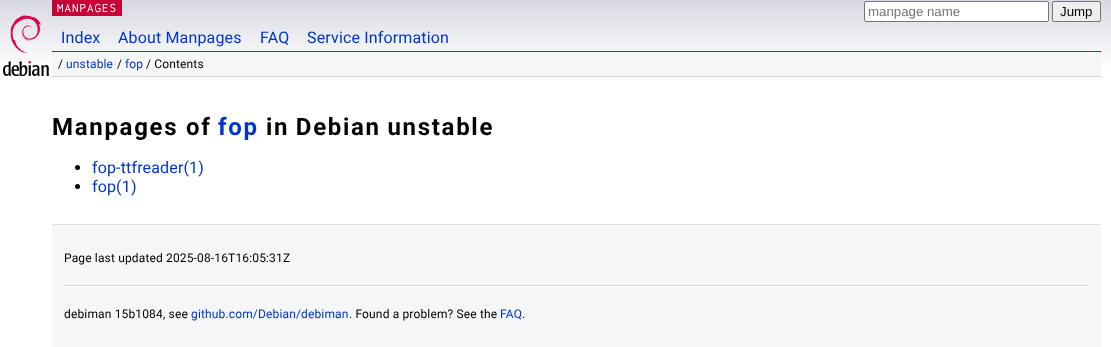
<svg xmlns="http://www.w3.org/2000/svg" xmlns:xlink="http://www.w3.org/1999/xlink" width="1111" height="347" viewBox="0 0 1111 347">
<style>
.cls-1{font:13px Inconsolata;letter-spacing:1px;fill:#ffffff}
.cls-2{font:13.25px Liberation Sans;fill:#757575}
.cls-3{font:13.25px Liberation Sans;fill:#000000}
.cls-4{font:16px Roboto;letter-spacing:0.15px;fill:#0035c7}
.cls-5{font:12px Roboto;letter-spacing:0.15px;fill:#000000}
.cls-6{font:12px Roboto;letter-spacing:0.15px;fill:#0035c7}
.cls-7{font:bold 24px Roboto;letter-spacing:1.7px;fill:#000000}
.cls-8{font:bold 24px Roboto;letter-spacing:1.7px;fill:#0035c7}
</style>
<defs>
<linearGradient id="g1" gradientUnits="userSpaceOnUse" x1="556" y1="0" x2="556" y2="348"><stop offset="0" stop-color="#d7d9e2"/><stop offset="0.2" stop-color="#ffffff"/></linearGradient>
</defs>
<rect width="100%" height="100%" fill="#ffffff"/>
<rect fill="url(#g1)" x="0" y="0" width="1111" height="65"/>
<rect fill="#c70036" x="52" y="0" width="70" height="16"/>
<rect fill="#ffffff" stroke="#767676" x="864.5" y="1.5" width="184" height="20" rx="1.5"/>
<rect fill="#efefef" stroke="#767676" x="1052.5" y="1.5" width="48" height="20" rx="1.5"/>
<image xlink:href="image0.png" x="3" y="15" width="46" height="61"/>
<rect fill="#c70036" x="52" y="51" width="1049" height="1"/>
<rect fill="#f5f6f7" x="52" y="56" width="1049" height="20"/>
<rect fill="#d2d3d7" x="52" y="76" width="1049" height="1"/>
<circle fill="#000000" cx="77.5" cy="167.5" r="2.5"/>
<circle fill="#000000" cx="77.5" cy="186.5" r="2.5"/>
<rect fill="#f5f6f7" x="52" y="225" width="1049" height="122"/>
<rect fill="#dfdfe0" x="52" y="224" width="1049" height="1"/>
<rect fill="#d2d3d7" x="64" y="285" width="1025" height="1"/>
<rect fill="#ffffff" x="64" y="286" width="1025" height="1"/>
<text class="cls-1" x="57" y="12">MANPAGES</text>
<text class="cls-2" x="868" y="16">manpage name</text>
<text class="cls-3" x="1060" y="16">Jump</text>
<text class="cls-4" x="61" y="43">Index</text>
<text class="cls-4" x="118" y="43">About Manpages</text>
<text class="cls-4" x="260" y="43">FAQ</text>
<text class="cls-4" x="307" y="43">Service Information</text>
<text class="cls-5" x="58" y="68">/</text>
<text class="cls-6" x="66" y="68">unstable</text>
<text class="cls-5" x="117" y="68">/</text>
<text class="cls-6" x="125" y="68">fop</text>
<text class="cls-5" x="146" y="68">/ Contents</text>
<text class="cls-7" x="52" y="135">Manpages of</text>
<text class="cls-8" x="218" y="135">fop</text>
<text class="cls-7" x="266" y="135" word-spacing="-1">in Debian unstable</text>
<text class="cls-4"><tspan x="92" y="173">fop-ttfreader(1)</tspan><tspan x="92" y="192">fop(1)</tspan></text>
<text class="cls-5" x="64" y="262">Page last updated 2025-08-16T16:05:31Z</text>
<text class="cls-5" x="64" y="318">debiman 15b1084, see</text>
<text class="cls-6" x="191" y="318">github.com/Debian/debiman</text>
<text class="cls-5" x="349" y="318">. Found a problem? See the</text>
<text class="cls-6" x="500" y="318">FAQ</text>
<text class="cls-5" x="522" y="318">.</text>
</svg>
